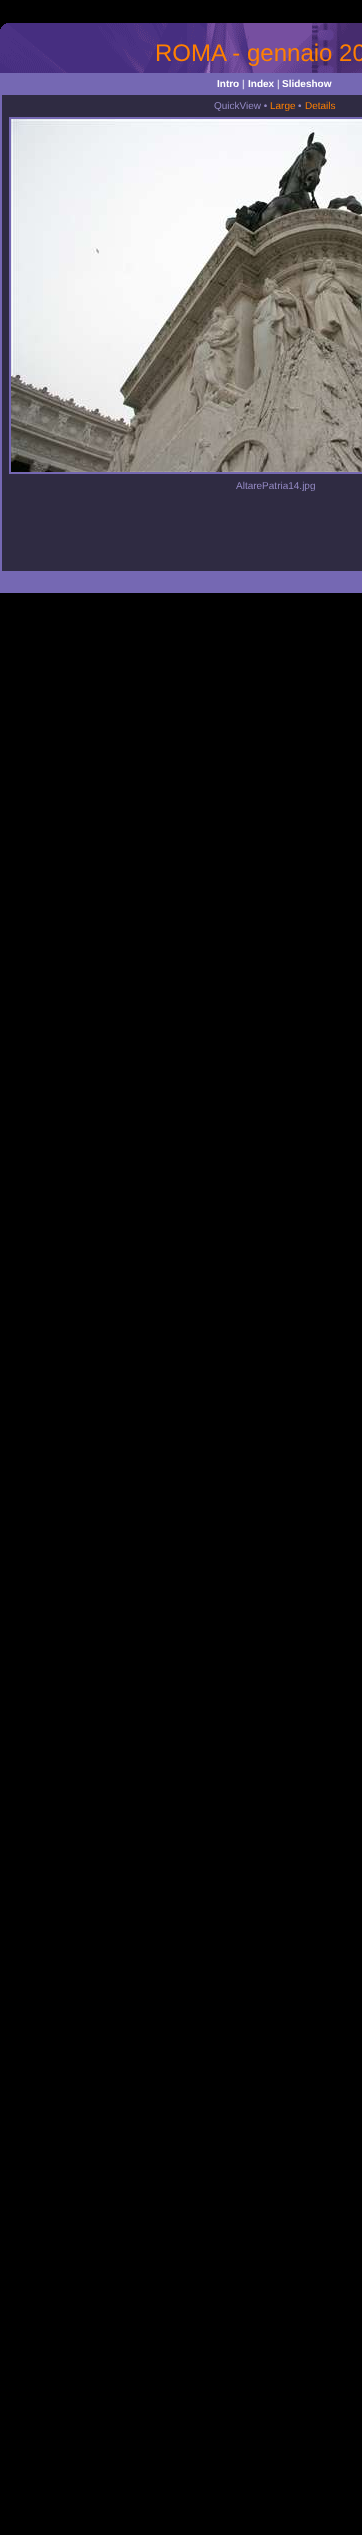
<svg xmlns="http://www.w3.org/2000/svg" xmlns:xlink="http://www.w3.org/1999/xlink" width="362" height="2535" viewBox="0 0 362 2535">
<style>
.cls-1{font:24px Liberation Sans;fill:#ff8000}
.cls-2{font:bold 10px Liberation Sans;fill:#ffffff}
.cls-3{font:bold 10px Liberation Sans;fill:#d3cfe7}
.cls-4{font:10px Liberation Sans;fill:#948ac4}
.cls-5{font:10px Liberation Sans;fill:#ff8000}
</style>
<rect width="100%" height="100%" fill="#000000"/>
<image xlink:href="image0.png" x="0" y="23" width="362" height="50"/>
<rect fill="#2f2b42" x="2" y="95" width="360" height="476"/>
<rect fill="#7568b3" x="0" y="73" width="2" height="520"/>
<rect fill="#7568b3" x="2" y="73" width="360" height="22"/>
<rect fill="none" stroke="#7568b3" stroke-width="2" x="10" y="118" width="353" height="355"/>
<image xlink:href="image1.png" x="11" y="119" width="351" height="353"/>
<rect fill="#7568b3" x="2" y="571" width="360" height="22"/>
<text class="cls-1" x="155" y="61">ROMA - gennaio 20</text>
<text class="cls-2" x="217" y="87">Intro</text>
<text class="cls-3" x="242" y="87">|</text>
<text class="cls-2" x="248" y="87">Index</text>
<text class="cls-3" x="277" y="87">|</text>
<text class="cls-2" x="282" y="87">Slideshow</text>
<text class="cls-4" x="214" y="109">QuickView •</text>
<text class="cls-5" x="270" y="109">Large</text>
<text class="cls-4" x="298" y="109">•</text>
<text class="cls-5" x="305" y="109">Details</text>
<text class="cls-4" x="236" y="489">AltarePatria14.jpg</text>
</svg>
